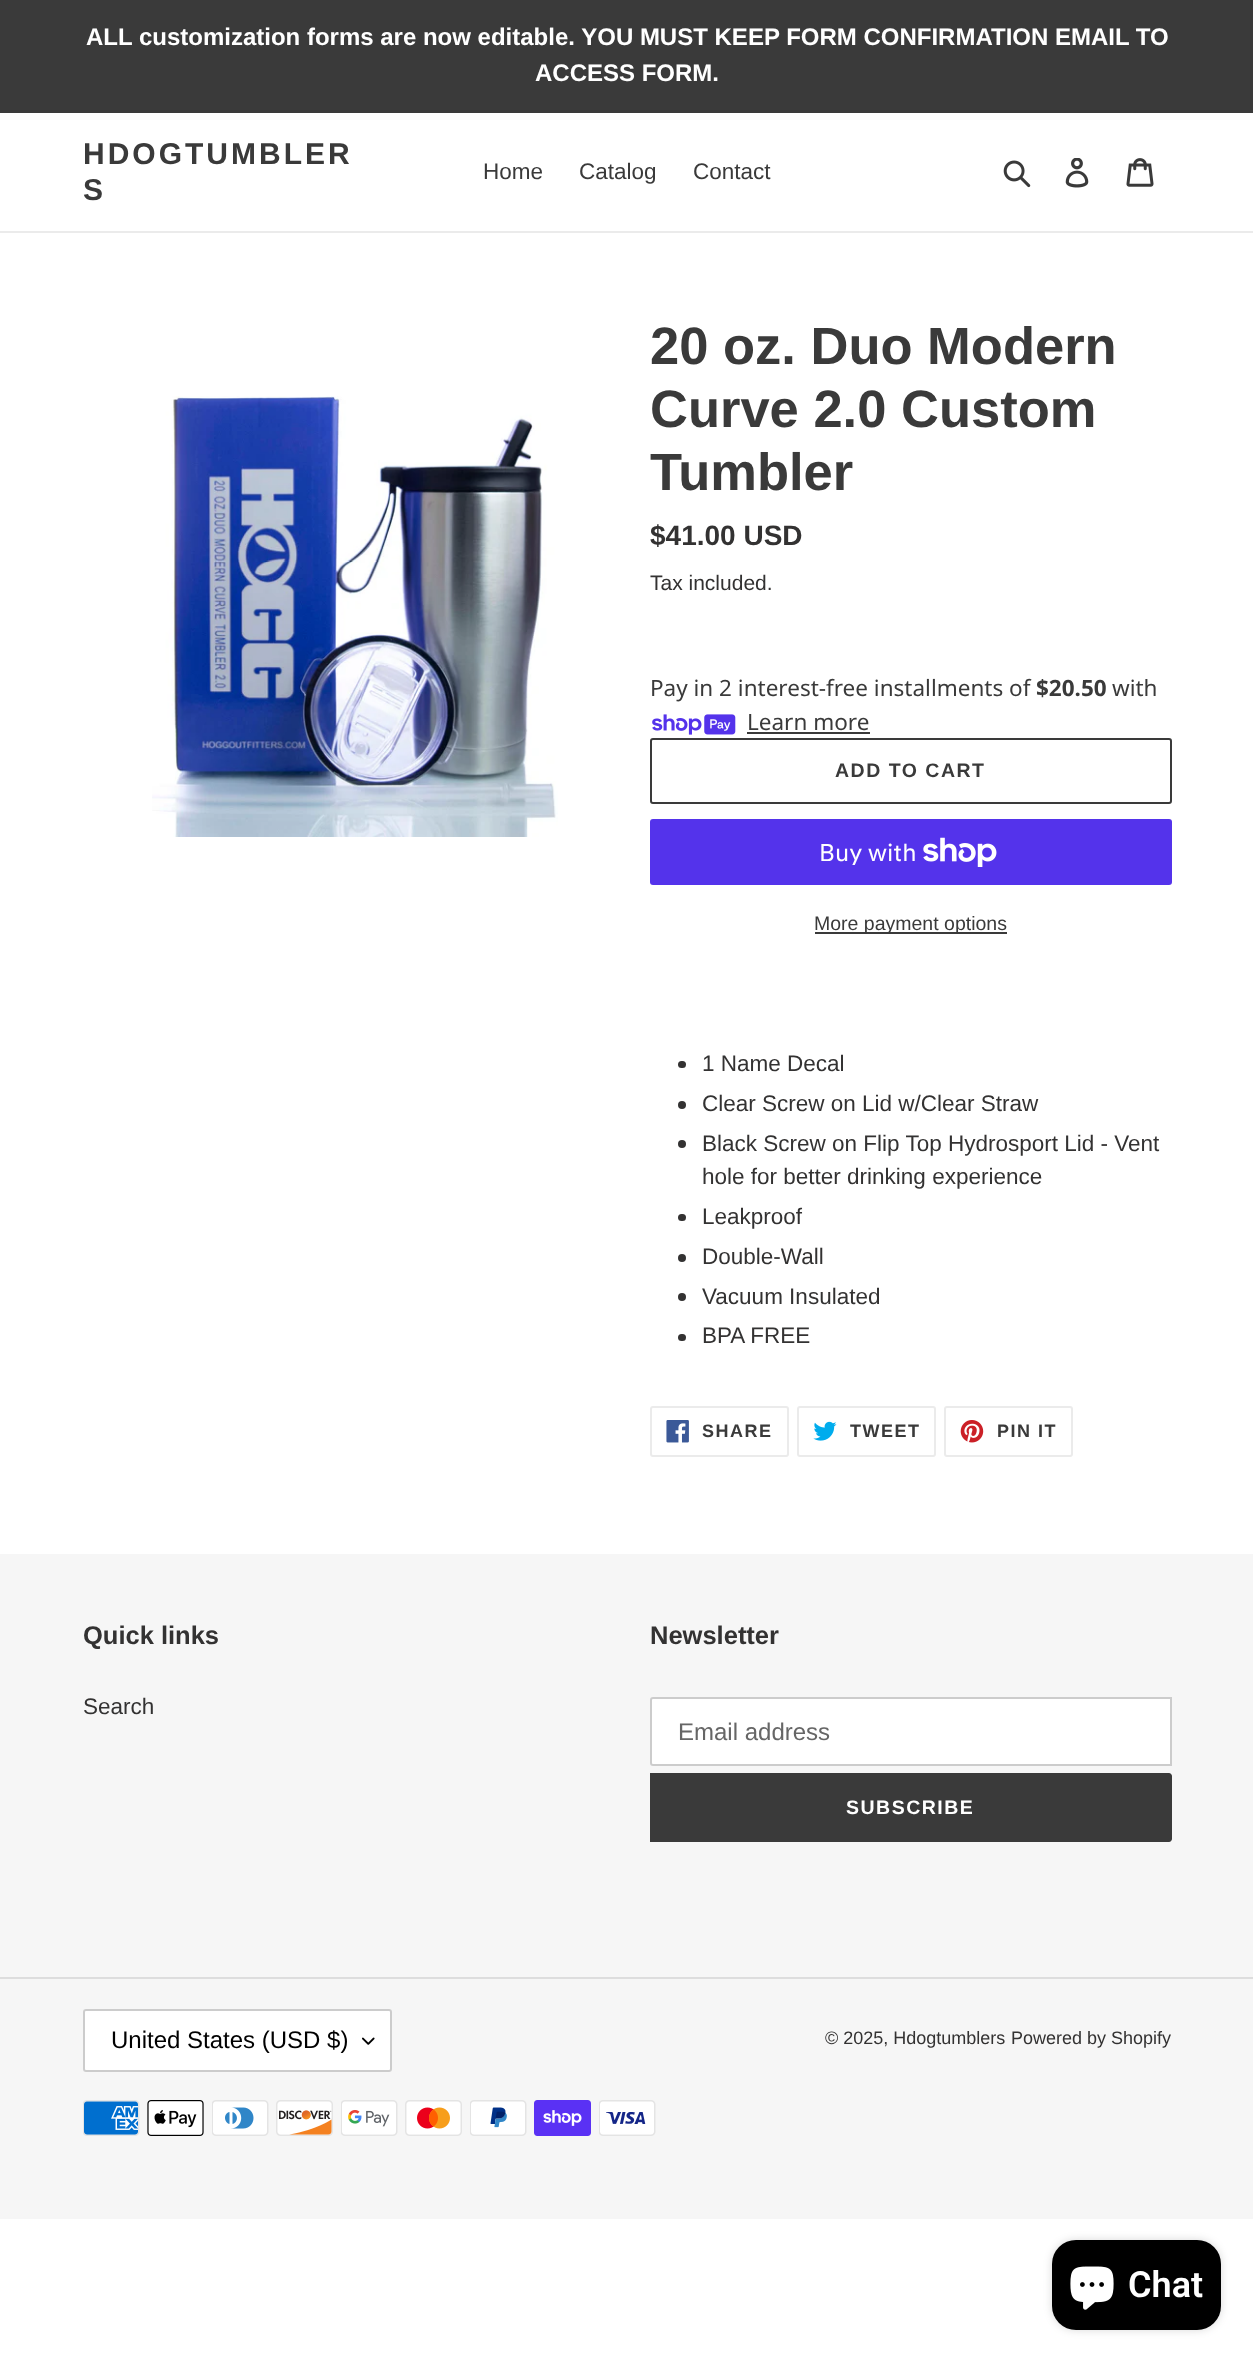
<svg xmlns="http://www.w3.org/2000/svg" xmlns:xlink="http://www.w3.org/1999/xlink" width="1253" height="2360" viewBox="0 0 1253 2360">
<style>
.cls-1{font:bold 24px Liberation Sans;fill:#ffffff}
.cls-2{font:bold 30px Liberation Sans;letter-spacing:3px;fill:#3a3a3a}
.cls-3{font:22.5px Liberation Sans;fill:#3a3a3a}
.cls-4{font:bold 52.5px Liberation Sans;fill:#3a3a3a}
.cls-5{font:bold 28px Liberation Sans;fill:#333232}
.cls-6{font:21px Liberation Sans;fill:#333232}
.cls-7{font:22.5px Noto Sans;fill:#3a3a3a}
.cls-8{font:bold 22.5px Noto Sans;fill:#3a3a3a}
.cls-9{font:bold 19.5px Liberation Sans;letter-spacing:1.5px;fill:#3a3a3a}
.cls-10{font:24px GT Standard;fill:#ffffff}
.cls-11{font:19.5px Liberation Sans;fill:#3a3a3a}
.cls-12{font:22.5px Liberation Sans;fill:#333232}
.cls-13{font:bold 18px Liberation Sans;letter-spacing:1.5px;fill:#3a3a3a}
.cls-14{font:bold 25.5px Liberation Sans;fill:#333232}
.cls-15{font:24px Liberation Sans;fill:#666666}
.cls-16{font:bold 19.5px Liberation Sans;letter-spacing:1.5px;fill:#ffffff}
.cls-17{font:24px Liberation Sans;fill:#000000}
.cls-18{font:18px Liberation Sans;fill:#333232}
.cls-19{font:600 36px Roboto;fill:#ffffff}
</style>
<rect width="100%" height="100%" fill="#ffffff"/>
<rect fill="#3a3a3a" x="0" y="0" width="1253" height="113"/>
<rect fill="#ebebeb" x="0" y="231" width="1253" height="2"/>
<image xlink:href="image0.png" x="1003" y="160" width="28" height="28"/>
<image xlink:href="image1.png" x="1065" y="158" width="24" height="30"/>
<image xlink:href="image2.png" x="1126" y="158" width="28" height="29"/>
<image xlink:href="image3.png" x="152" y="396" width="406" height="441"/>
<image xlink:href="image4.png" x="652" y="714" width="84" height="21"/>
<rect fill="#3a3a3a" x="747" y="732" width="123" height="2"/>
<rect fill="none" stroke="#3a3a3a" stroke-width="2" x="651" y="739" width="520" height="64" rx="2"/>
<rect fill="#5433eb" x="650" y="819" width="522" height="66" rx="3"/>
<image xlink:href="image5.png" x="923" y="837" width="74" height="30"/>
<rect fill="#3a3a3a" x="815" y="932" width="192" height="2"/>
<rect fill="#333232" x="678" y="1061" width="8" height="7" rx="3.5"/>
<circle fill="#333232" cx="682" cy="1105" r="4"/>
<circle fill="#333232" cx="682" cy="1144" r="4"/>
<rect fill="#333232" x="678" y="1214" width="8" height="7" rx="3.5"/>
<circle fill="#333232" cx="682" cy="1258" r="4"/>
<circle fill="#333232" cx="682" cy="1297" r="4"/>
<rect fill="#333232" x="678" y="1334" width="8" height="7" rx="3.5"/>
<rect fill="none" stroke="#ebebeb" stroke-width="2" x="651" y="1407" width="137" height="49" rx="2"/>
<image xlink:href="image6.png" x="666" y="1420" width="23" height="23"/>
<rect fill="none" stroke="#ebebeb" stroke-width="2" x="798" y="1407" width="137" height="49" rx="2"/>
<image xlink:href="image7.png" x="813" y="1421" width="24" height="20"/>
<rect fill="none" stroke="#ebebeb" stroke-width="2" x="945" y="1407" width="127" height="49" rx="2"/>
<image xlink:href="image8.png" x="960" y="1420" width="24" height="23"/>
<rect fill="#f6f6f6" x="0" y="1554" width="1253" height="665"/>
<path fill="#ffffff" stroke="#cccccc" stroke-width="2" d="M653 1698H1171V1765H653C652 1765 651 1764 651 1763V1700C651 1699 652 1698 653 1698Z"/>
<path fill="#3a3a3a" d="M650 1773H1169C1170.5 1773 1172 1774.5 1172 1776V1839C1172 1840.5 1170.5 1842 1169 1842H650Z"/>
<rect fill="#dddddd" x="0" y="1977" width="1253" height="2"/>
<rect fill="#ffffff" x="83" y="2009" width="309" height="63" rx="3"/>
<image xlink:href="image9.png" x="362" y="2037" width="13" height="8"/>
<rect fill="none" stroke="#cccccc" stroke-width="2" x="84" y="2010" width="307" height="61" rx="2"/>
<image xlink:href="image10.png" x="83" y="2100" width="57" height="36"/>
<image xlink:href="image11.png" x="147" y="2100" width="57" height="36"/>
<image xlink:href="image12.png" x="212" y="2100" width="57" height="36"/>
<image xlink:href="image13.png" x="276" y="2100" width="57" height="36"/>
<image xlink:href="image14.png" x="341" y="2100" width="57" height="36"/>
<image xlink:href="image15.png" x="405" y="2100" width="57" height="36"/>
<image xlink:href="image16.png" x="470" y="2100" width="57" height="36"/>
<image xlink:href="image17.png" x="534" y="2100" width="57" height="36"/>
<image xlink:href="image18.png" x="599" y="2100" width="57" height="36"/>
<rect fill="#000000" fill-opacity="0.15" filter="blur(4px)" x="1052" y="2240" width="169" height="90" rx="24"/>
<rect fill="#000000" x="1052" y="2240" width="169" height="90" rx="24"/>
<image xlink:href="image19.png" x="1070" y="2266" width="44" height="44"/>
<text class="cls-1" x="86" y="45">ALL customization forms are now editable. YOU MUST KEEP FORM CONFIRMATION EMAIL TO</text>
<text class="cls-1" x="535" y="81">ACCESS FORM.</text>
<text class="cls-2"><tspan x="83" y="164">HDOGTUMBLER</tspan><tspan x="83" y="200">S</tspan></text>
<text class="cls-3" x="483" y="179">Home</text>
<text class="cls-3" x="579" y="179">Catalog</text>
<text class="cls-3" x="693" y="179">Contact</text>
<text class="cls-4"><tspan x="650" y="364">20 oz. Duo Modern</tspan><tspan x="650" y="427">Curve 2.0 Custom</tspan><tspan x="650" y="490">Tumbler</tspan></text>
<text class="cls-5" x="650" y="545">$41.00 USD</text>
<text class="cls-6" x="650" y="590">Tax included.</text>
<text class="cls-7" x="650" y="696">Pay in 2 interest-free installments of</text>
<text class="cls-8" x="1036" y="696">$20.50</text>
<text class="cls-7" x="1112" y="696">with</text>
<text class="cls-7" x="747" y="730">Learn more</text>
<text class="cls-9" x="835" y="777">ADD TO CART</text>
<text class="cls-10" x="819" y="861">Buy with</text>
<text class="cls-11" x="814" y="930">More payment options</text>
<text class="cls-12"><tspan x="702" y="1071">1 Name Decal</tspan><tspan x="702" y="1111">Clear Screw on Lid w/Clear Straw</tspan><tspan x="702" y="1151">Black Screw on Flip Top Hydrosport Lid - Vent</tspan><tspan x="702" y="1184">hole for better drinking experience</tspan><tspan x="702" y="1224">Leakproof</tspan><tspan x="702" y="1264">Double-Wall</tspan><tspan x="702" y="1304">Vacuum Insulated</tspan><tspan x="702" y="1343">BPA FREE</tspan></text>
<text class="cls-13" x="702" y="1437">SHARE</text>
<text class="cls-13" x="850" y="1437">TWEET</text>
<text class="cls-13" x="997" y="1437">PIN IT</text>
<text class="cls-14" x="83" y="1644">Quick links</text>
<text class="cls-12" x="83" y="1714">Search</text>
<text class="cls-14" x="650" y="1644">Newsletter</text>
<text class="cls-15" x="678" y="1740">Email address</text>
<text class="cls-16" x="846" y="1814">SUBSCRIBE</text>
<text class="cls-17" x="111" y="2048">United States (USD $)</text>
<text class="cls-18" x="825" y="2044">© 2025, Hdogtumblers</text>
<text class="cls-18" x="1011" y="2044">Powered by Shopify</text>
<text class="cls-19" x="1128" y="2297">Chat</text>
</svg>
